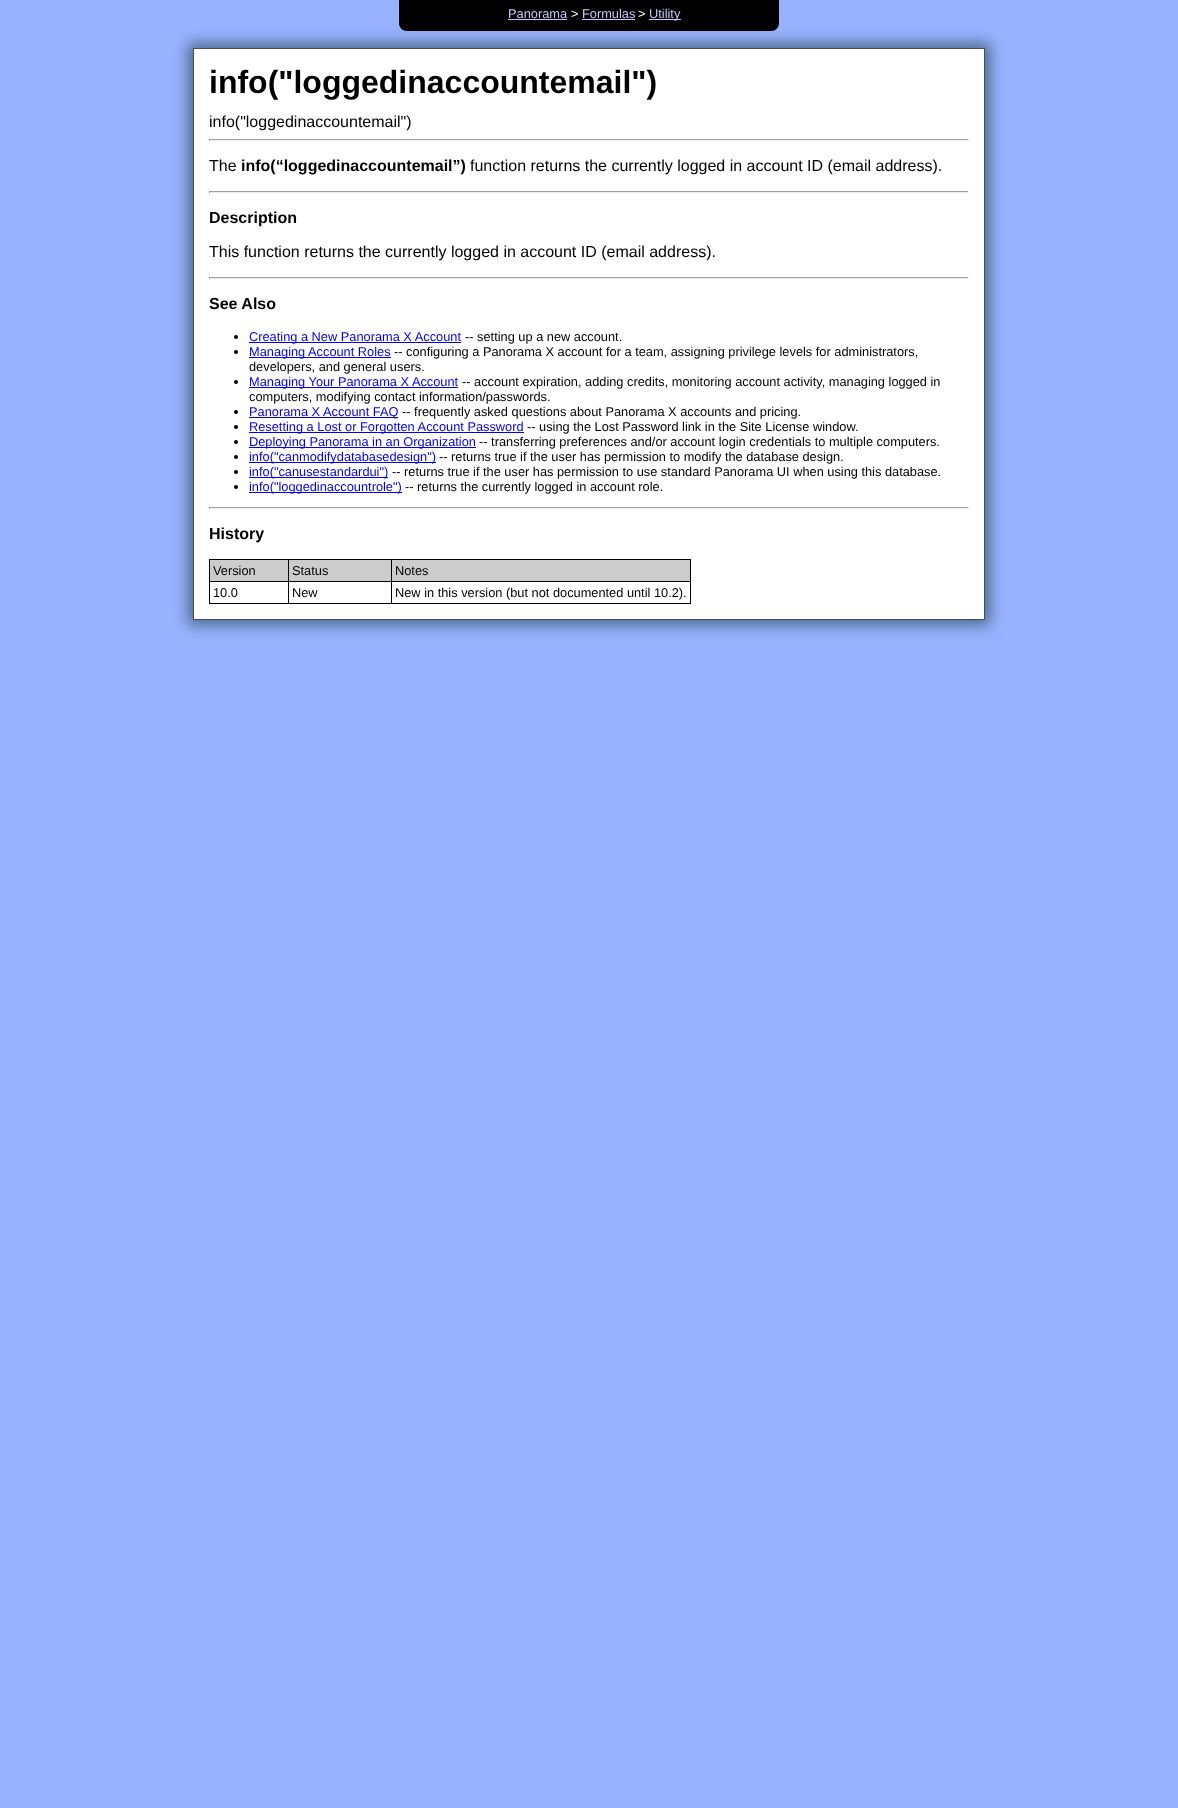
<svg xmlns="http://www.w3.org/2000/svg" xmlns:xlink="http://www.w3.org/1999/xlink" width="1178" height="1808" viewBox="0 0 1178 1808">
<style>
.cls-1{font:12.8px Liberation Sans;fill:#c8c8ff}
.cls-2{font:12.8px Liberation Sans;fill:#ffffff}
.cls-3{font:bold 32px Liberation Sans;fill:#000000}
.cls-4{font:16px Liberation Sans;fill:#000000}
.cls-5{font:bold 16px Liberation Sans;fill:#000000}
.cls-6{font:12.8px Liberation Sans;fill:#0000ee}
.cls-7{font:12.8px Liberation Sans;fill:#000000}
</style>
<rect width="100%" height="100%" fill="#99b2ff"/>
<rect fill="#2c5264" fill-opacity="0.75" filter="blur(7.5px)" x="188" y="43" width="802" height="582"/>
<path fill="#000000" d="M399 0H779V23C779 27.5 775.5 31 771 31H407C402.5 31 399 27.5 399 23Z"/>
<rect fill="#c8c8ff" x="508" y="19" width="59" height="1"/>
<rect fill="#c8c8ff" x="582" y="19" width="53" height="1"/>
<rect fill="#c8c8ff" x="649" y="19" width="32" height="1"/>
<rect fill="#ffffff" stroke="#4b4b4b" x="193.5" y="48.5" width="791" height="571"/>
<rect fill="#9f9f9f" x="209" y="139" width="760" height="1"/>
<rect fill="#eeeeee" x="968" y="139" width="1" height="2"/>
<rect fill="#eeeeee" x="209" y="140" width="760" height="1"/>
<rect fill="#9f9f9f" x="209" y="139" width="1" height="2"/>
<rect fill="#9f9f9f" x="209" y="191" width="760" height="1"/>
<rect fill="#eeeeee" x="968" y="191" width="1" height="2"/>
<rect fill="#eeeeee" x="209" y="192" width="760" height="1"/>
<rect fill="#9f9f9f" x="209" y="191" width="1" height="2"/>
<rect fill="#9f9f9f" x="209" y="277" width="760" height="1"/>
<rect fill="#eeeeee" x="968" y="277" width="1" height="2"/>
<rect fill="#eeeeee" x="209" y="278" width="760" height="1"/>
<rect fill="#9f9f9f" x="209" y="277" width="1" height="2"/>
<circle fill="#000000" cx="236" cy="337" r="2"/>
<rect fill="#0000ee" x="249" y="342" width="212" height="1"/>
<circle fill="#000000" cx="236" cy="352" r="2"/>
<rect fill="#0000ee" x="249" y="357" width="142" height="1"/>
<circle fill="#000000" cx="236" cy="382" r="2"/>
<rect fill="#0000ee" x="249" y="387" width="209" height="1"/>
<circle fill="#000000" cx="236" cy="412" r="2"/>
<rect fill="#0000ee" x="249" y="417" width="149" height="1"/>
<circle fill="#000000" cx="236" cy="427" r="2"/>
<rect fill="#0000ee" x="249" y="432" width="275" height="1"/>
<circle fill="#000000" cx="236" cy="442" r="2"/>
<rect fill="#0000ee" x="249" y="447" width="227" height="1"/>
<circle fill="#000000" cx="236" cy="457" r="2"/>
<rect fill="#0000ee" x="249" y="462" width="187" height="1"/>
<circle fill="#000000" cx="236" cy="472" r="2"/>
<rect fill="#0000ee" x="249" y="477" width="139" height="1"/>
<circle fill="#000000" cx="236" cy="487" r="2"/>
<rect fill="#0000ee" x="249" y="492" width="153" height="1"/>
<rect fill="#9f9f9f" x="209" y="507" width="760" height="1"/>
<rect fill="#eeeeee" x="968" y="507" width="1" height="2"/>
<rect fill="#eeeeee" x="209" y="508" width="760" height="1"/>
<rect fill="#9f9f9f" x="209" y="507" width="1" height="2"/>
<rect fill="#000000" x="209" y="559" width="482" height="1"/>
<rect fill="#000000" x="690" y="559" width="1" height="45"/>
<rect fill="#000000" x="209" y="603" width="482" height="1"/>
<rect fill="#000000" x="209" y="559" width="1" height="45"/>
<rect fill="#cccccc" x="210" y="560" width="480" height="21"/>
<rect fill="#000000" x="391" y="581" width="300" height="1"/>
<rect fill="#000000" x="391" y="581" width="1" height="23"/>
<rect fill="#000000" x="288" y="581" width="104" height="1"/>
<rect fill="#000000" x="288" y="581" width="1" height="23"/>
<rect fill="#000000" x="209" y="581" width="80" height="1"/>
<rect fill="#000000" x="288" y="559" width="1" height="23"/>
<rect fill="#000000" x="391" y="559" width="1" height="23"/>
<text class="cls-1" x="508" y="18">Panorama</text>
<text class="cls-2" x="571" y="18">&gt;</text>
<text class="cls-1" x="582" y="18">Formulas</text>
<text class="cls-2" x="638" y="18">&gt;</text>
<text class="cls-1" x="649" y="18">Utility</text>
<text class="cls-3" x="209" y="93">info("loggedinaccountemail")</text>
<text class="cls-4" x="209" y="127">info("loggedinaccountemail")</text>
<text class="cls-4" x="209" y="171">The</text>
<text class="cls-5" x="241" y="171">info(“loggedinaccountemail”)</text>
<text class="cls-4" x="470" y="171">function returns the currently logged in account ID (email address).</text>
<text class="cls-5" x="209" y="223">Description</text>
<text class="cls-4" x="209" y="257">This function returns the currently logged in account ID (email address).</text>
<text class="cls-5" x="209" y="309">See Also</text>
<text class="cls-6" x="249" y="341">Creating a New Panorama X Account</text>
<text class="cls-7" x="465" y="341">-- setting up a new account.</text>
<text class="cls-6" x="249" y="356">Managing Account Roles</text>
<text class="cls-7" x="394" y="356">-- configuring a Panorama X account for a team, assigning privilege levels for administrators,</text>
<text class="cls-7" x="249" y="371">developers, and general users.</text>
<text class="cls-6" x="249" y="386">Managing Your Panorama X Account</text>
<text class="cls-7" x="462" y="386">-- account expiration, adding credits, monitoring account activity, managing logged in</text>
<text class="cls-7" x="249" y="401">computers, modifying contact information/passwords.</text>
<text class="cls-6" x="249" y="416">Panorama X Account FAQ</text>
<text class="cls-7" x="402" y="416">-- frequently asked questions about Panorama X accounts and pricing.</text>
<text class="cls-6" x="249" y="431">Resetting a Lost or Forgotten Account Password</text>
<text class="cls-7" x="527" y="431">-- using the Lost Password link in the Site License window.</text>
<text class="cls-6" x="249" y="446">Deploying Panorama in an Organization</text>
<text class="cls-7" x="479" y="446">-- transferring preferences and/or account login credentials to multiple computers.</text>
<text class="cls-6" x="249" y="461">info("canmodifydatabasedesign")</text>
<text class="cls-7" x="439" y="461">-- returns true if the user has permission to modify the database design.</text>
<text class="cls-6" x="249" y="476">info("canusestandardui")</text>
<text class="cls-7" x="392" y="476">-- returns true if the user has permission to use standard Panorama UI when using this database.</text>
<text class="cls-6" x="249" y="491">info("loggedinaccountrole")</text>
<text class="cls-7" x="405" y="491">-- returns the currently logged in account role.</text>
<text class="cls-5" x="209" y="539">History</text>
<text class="cls-7" x="213" y="575">Version</text>
<text class="cls-7" x="292" y="575">Status</text>
<text class="cls-7" x="395" y="575">Notes</text>
<text class="cls-7" x="213" y="597">10.0</text>
<text class="cls-7" x="292" y="597">New</text>
<text class="cls-7" x="395" y="597">New in this version (but not documented until 10.2).</text>
</svg>
